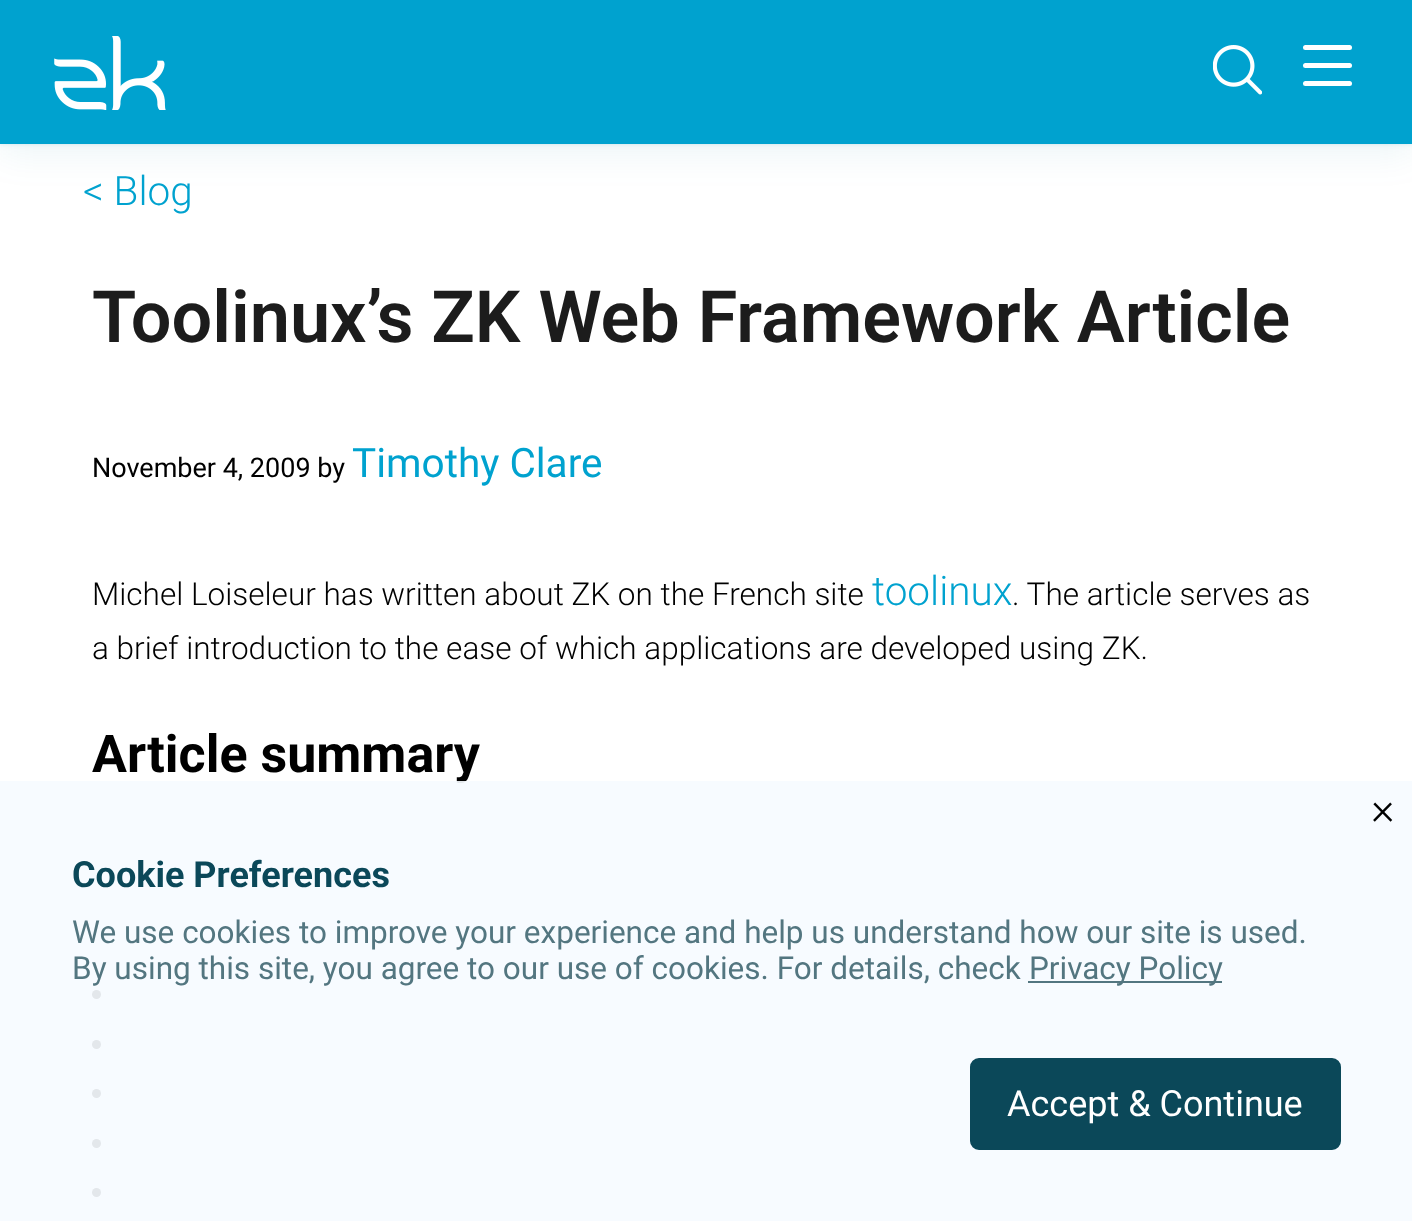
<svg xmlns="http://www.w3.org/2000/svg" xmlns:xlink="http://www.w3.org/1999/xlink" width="1412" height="1221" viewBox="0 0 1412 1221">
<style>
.cls-1{font:300 40.5px Roboto;fill:#00a2cf}
.cls-2{font:600 72px Roboto;fill:#1c1c1c}
.cls-3{font:27px Roboto;fill:#000000}
.cls-4{font:40.5px Roboto;fill:#00a2cf}
.cls-5{font:300 31.5px Roboto;fill:#000000}
.cls-6{font:bold 52px Roboto;fill:#000000}
.cls-7{font:300 45px Roboto;fill:#000000}
.cls-8{font:bold 36px Roboto;fill:#0b4859}
.cls-9{font:31.5px Roboto;fill:#537680}
.cls-10{font:36px Roboto;fill:#ffffff}
</style>
<rect width="100%" height="100%" fill="#ffffff"/>
<rect fill="#007c9e" fill-opacity="0.08" filter="blur(18px)" x="0" y="9" width="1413" height="144"/>
<rect fill="#007c9e" fill-opacity="0.16" filter="blur(2px)" x="0" y="0" width="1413" height="144"/>
<rect fill="#00a2cf" x="0" y="0" width="1412" height="144"/>
<image xlink:href="image0.png" x="54" y="36" width="112" height="74"/>
<image xlink:href="image1.png" x="1213" y="45" width="49" height="50"/>
<rect fill="#ffffff" x="1303" y="45" width="49" height="5" rx="2.5"/>
<rect fill="#ffffff" x="1303" y="63" width="49" height="5" rx="2.5"/>
<rect fill="#ffffff" x="1303" y="81" width="49" height="5" rx="2.5"/>
<circle fill="#000000" cx="96.5" cy="994.5" r="4.5"/>
<circle fill="#000000" cx="96.5" cy="1044.5" r="4.5"/>
<circle fill="#000000" cx="96.5" cy="1093.5" r="4.5"/>
<circle fill="#000000" cx="96.5" cy="1143.5" r="4.5"/>
<circle fill="#000000" cx="96.5" cy="1192.5" r="4.5"/>
<text class="cls-1" x="83" y="205">&lt; Blog</text>
<text class="cls-2" x="92" y="342">Toolinux’s ZK Web Framework Article</text>
<text class="cls-3" x="92" y="477">November 4, 2009 by</text>
<text class="cls-4" x="352" y="477">Timothy Clare</text>
<text class="cls-5" x="92" y="605">Michel Loiseleur has written about ZK on the French site</text>
<text class="cls-1" x="872" y="605">toolinux</text>
<text class="cls-5" x="1012" y="605">. The article serves as</text>
<text class="cls-5" x="92" y="659">a brief introduction to the ease of which applications are developed using ZK.</text>
<text class="cls-6" x="92" y="772">Article summary</text>
<rect fill="#f6fbff" fill-opacity="0.92" x="0" y="781" width="1412" height="440"/>
<text class="cls-7" x="1371" y="824">×</text>
<text class="cls-8" x="72" y="887">Cookie Preferences</text>
<text class="cls-9"><tspan x="72" y="943">We use cookies to improve your experience and help us understand how our site is used.</tspan><tspan x="72" y="979">By using this site, you agree to our use of cookies. For details, check</tspan></text>
<rect fill="#537680" x="1028" y="981" width="194" height="2"/>
<text class="cls-9" x="1029" y="979">Privacy Policy</text>
<rect fill="#0b4859" stroke="#0b4859" stroke-width="2" x="971" y="1059" width="369" height="90" rx="8"/>
<text class="cls-10" x="1007" y="1116">Accept &amp; Continue</text>
</svg>
